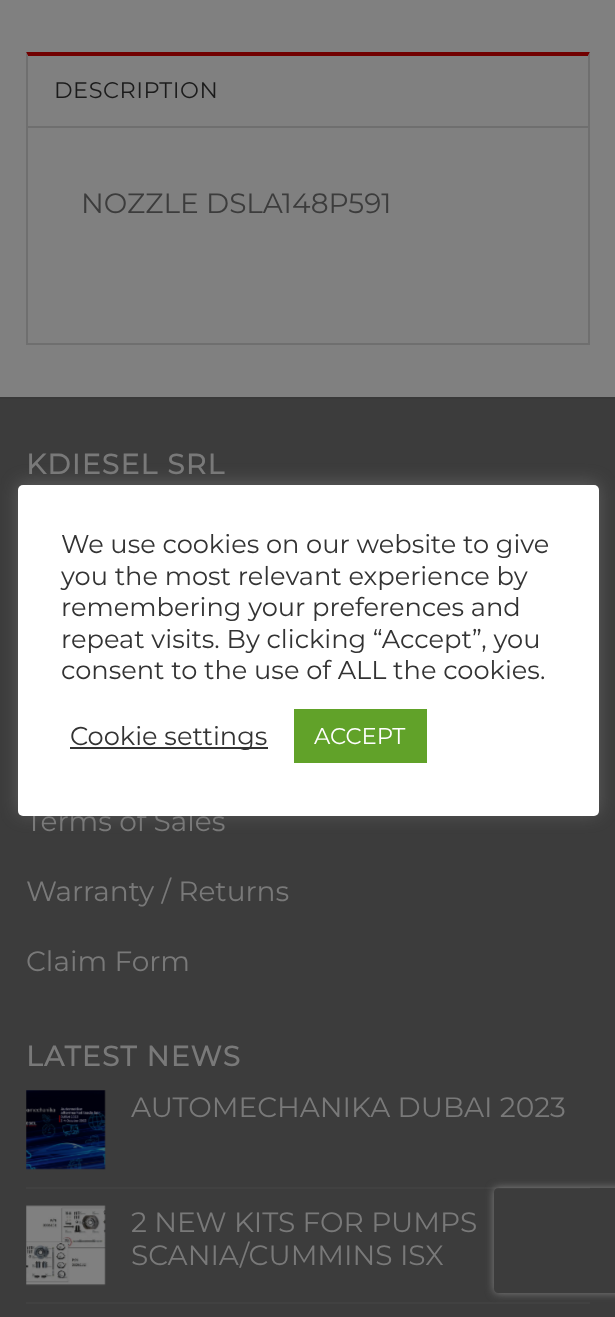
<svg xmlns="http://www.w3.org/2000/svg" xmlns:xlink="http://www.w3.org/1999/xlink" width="615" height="1317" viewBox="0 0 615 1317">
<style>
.cls-1{font:100 22.5px Montserrat;letter-spacing:0.5px;fill:#1b1b1b}
.cls-2{font:100 28px Montserrat;fill:#3c3c3c}
.cls-3{font:bold 28px Montserrat;letter-spacing:1.4px;fill:#797979}
.cls-4{font:100 28px Montserrat;fill:#797979}
.cls-5{font:100 25.7px Montserrat;fill:#333333}
.cls-6{font:100 22.75px Montserrat;fill:#ffffff}
</style>
<defs>
<clipPath id="clip1"><path d="M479 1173H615V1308H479ZM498 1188H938C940 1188 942 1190 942 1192V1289C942 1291 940 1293 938 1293H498C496 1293 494 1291 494 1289V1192C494 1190 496 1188 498 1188Z" clip-rule="evenodd"/></clipPath>
</defs>
<rect width="100%" height="100%" fill="#808080"/>
<path fill="#710000" d="M26 52H590L588 56H28Z"/>
<path fill="#6f6f6f" d="M590 52V126H588V56Z"/>
<path fill="#6f6f6f" d="M26 126V52L28 56V126Z"/>
<rect fill="none" stroke="#6f6f6f" stroke-width="2" x="27" y="127" width="562" height="217"/>
<rect fill="#3c3c3c" x="0" y="399" width="615" height="918"/>
<rect fill="#393939" x="0" y="397" width="615" height="2"/>
<image xlink:href="image0.png" x="26" y="1090" width="80" height="80"/>
<rect fill="#414141" x="26" y="1187" width="564" height="2"/>
<image xlink:href="image1.png" x="26" y="1205" width="80" height="81"/>
<rect fill="#414141" x="26" y="1302" width="564" height="2"/>
<rect fill="#acabab" fill-opacity="0.3" filter="blur(9px)" x="18" y="483" width="581" height="331" rx="5"/>
<g clip-path="url(#clip1)">
<rect fill="#808080" filter="blur(4.5px)" x="494" y="1188" width="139" height="105" rx="4"/>
</g>
<text class="cls-1" x="54" y="98">DESCRIPTION</text>
<text class="cls-2" x="81" y="213">NOZZLE DSLA148P591</text>
<text class="cls-3" x="26" y="474">KDIESEL SRL</text>
<text class="cls-4" x="26" y="831">Terms of Sales</text>
<text class="cls-4" x="26" y="901">Warranty / Returns</text>
<text class="cls-4" x="26" y="971">Claim Form</text>
<text class="cls-3" x="26" y="1066">LATEST NEWS</text>
<text class="cls-4" x="131" y="1117">AUTOMECHANIKA DUBAI 2023</text>
<text class="cls-4"><tspan x="131" y="1232">2 NEW KITS FOR PUMPS</tspan><tspan x="131" y="1265">SCANIA/CUMMINS ISX</tspan></text>
<rect fill="#ffffff" x="18" y="485" width="581" height="331" rx="5"/>
<text class="cls-5"><tspan x="61" y="553">We use cookies on our website to give</tspan><tspan x="61" y="585">you the most relevant experience by</tspan><tspan x="61" y="616">remembering your preferences and</tspan><tspan x="61" y="648">repeat visits. By clicking “Accept”, you</tspan><tspan x="61" y="679">consent to the use of ALL the cookies.</tspan></text>
<rect fill="#333333" x="70" y="747" width="198" height="2"/>
<text class="cls-5" x="70" y="745">Cookie settings</text>
<rect fill="#61a229" x="294" y="709" width="133" height="54"/>
<text class="cls-6" x="314" y="744">ACCEPT</text>
</svg>
